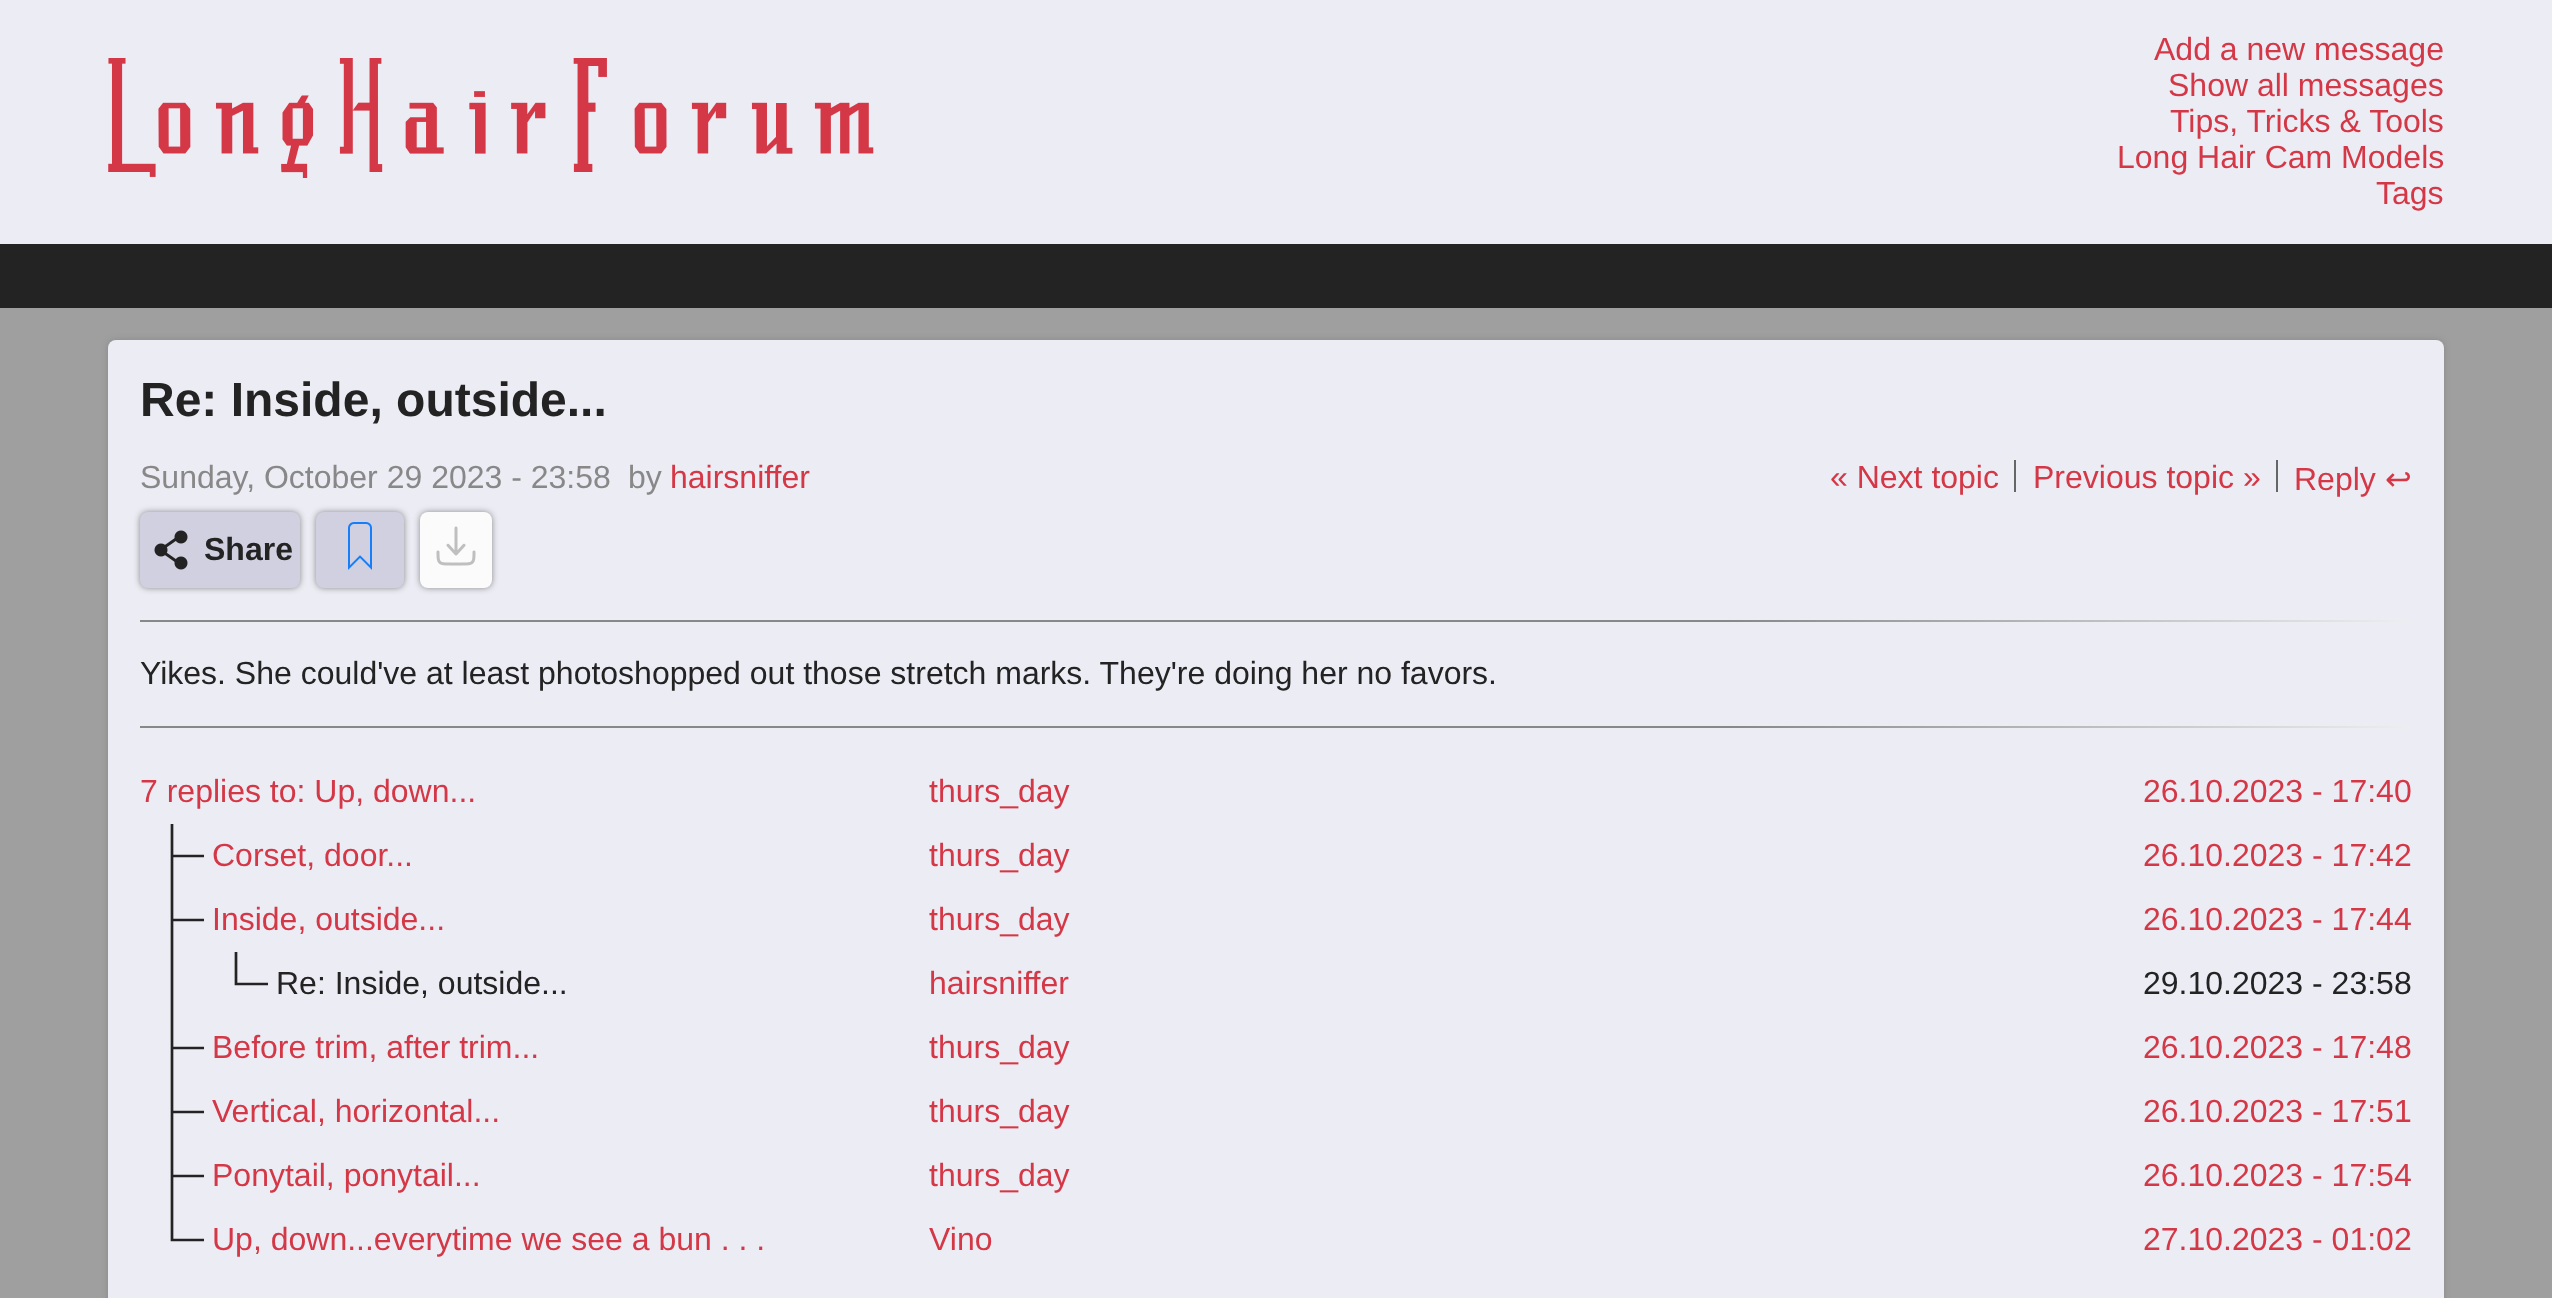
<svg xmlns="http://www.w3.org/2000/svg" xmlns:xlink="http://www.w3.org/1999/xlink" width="2552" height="1298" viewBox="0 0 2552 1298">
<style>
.cls-1{font:32px Liberation Sans;fill:#d43846}
.cls-2{font:bold 48px Liberation Sans;fill:#232323}
.cls-3{font:32px Liberation Sans;fill:#888888}
.cls-4{font:32px DejaVu Sans;fill:#d43846}
.cls-5{font:bold 32px Liberation Sans;fill:#232323}
.cls-6{font:32px Liberation Sans;fill:#232323}
</style>
<defs>
<linearGradient id="g1" gradientUnits="userSpaceOnUse" x1="140" y1="621" x2="2412" y2="621"><stop offset="0" stop-color="#888888"/><stop offset="0.7" stop-color="#888888"/><stop offset="1" stop-color="#eeeeee"/></linearGradient>
<linearGradient id="g2" gradientUnits="userSpaceOnUse" x1="140" y1="727" x2="2412" y2="727"><stop offset="0" stop-color="#888888"/><stop offset="0.7" stop-color="#888888"/><stop offset="1" stop-color="#eeeeee"/></linearGradient>
</defs>
<rect width="100%" height="100%" fill="#9f9f9f"/>
<rect fill="#ececf5" x="0" y="0" width="2552" height="244"/>
<image xlink:href="image0.png" x="108" y="58" width="766" height="120"/>
<rect fill="#232323" x="0" y="244" width="2552" height="64"/>
<rect fill="#888888" filter="blur(3px)" x="108" y="340" width="2336" height="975" rx="8"/>
<rect fill="#ececf5" x="108" y="340" width="2336" height="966" rx="8"/>
<rect fill="#666666" x="2014" y="460" width="2" height="32"/>
<rect fill="#666666" x="2276" y="460" width="2" height="32"/>
<rect fill="#888888" filter="blur(3px)" x="140" y="512" width="160" height="76" rx="8"/>
<rect fill="#d0d0e0" x="140" y="512" width="160" height="76" rx="8"/>
<image xlink:href="image1.png" x="154" y="530" width="34" height="40"/>
<rect fill="#888888" filter="blur(3px)" x="316" y="512" width="88" height="76" rx="8"/>
<rect fill="#d0d0e0" x="316" y="512" width="88" height="76" rx="8"/>
<image xlink:href="image2.png" x="348" y="522" width="24" height="48"/>
<rect fill="#888888" filter="blur(3px)" x="420" y="512" width="72" height="76" rx="8"/>
<rect fill="#fbfbfb" x="420" y="512" width="72" height="76" rx="8"/>
<image xlink:href="image3.png" x="436" y="526" width="40" height="40"/>
<rect fill="url(#g1)" x="140" y="620" width="2272" height="2"/>
<rect fill="url(#g2)" x="140" y="726" width="2272" height="2"/>
<path fill="none" stroke="#232323" stroke-width="2.7" d="M172 824V888V856H204"/>
<path fill="none" stroke="#232323" stroke-width="2.7" d="M172 888V952V920H204"/>
<path fill="none" stroke="#232323" stroke-width="2.7" d="M172 952V1016"/>
<path fill="none" stroke="#232323" stroke-width="2.7" d="M236 952V984H268"/>
<path fill="none" stroke="#232323" stroke-width="2.7" d="M172 1016V1080V1048H204"/>
<path fill="none" stroke="#232323" stroke-width="2.7" d="M172 1080V1144V1112H204"/>
<path fill="none" stroke="#232323" stroke-width="2.7" d="M172 1144V1208V1176H204"/>
<path fill="none" stroke="#232323" stroke-width="2.7" d="M172 1208V1240H204"/>
<text class="cls-1" x="2154" y="60">Add a new message</text>
<text class="cls-1" x="2168" y="96">Show all messages</text>
<text class="cls-1" x="2170" y="132">Tips, Tricks &amp; Tools</text>
<text class="cls-1" x="2117" y="168">Long Hair Cam Models</text>
<text class="cls-1" x="2376" y="204">Tags</text>
<text class="cls-2" x="140" y="416">Re: Inside, outside...</text>
<text class="cls-3" x="140" y="488">Sunday, October 29 2023 - 23:58</text>
<text class="cls-3" x="628" y="488">by</text>
<text class="cls-1" x="670" y="488">hairsniffer</text>
<text class="cls-1" x="1830" y="488">« Next topic</text>
<text class="cls-1" x="2033" y="488">Previous topic »</text>
<text class="cls-1" x="2294" y="490">Reply</text>
<text class="cls-4" x="2385" y="490">↩</text>
<text class="cls-5" x="204" y="560">Share</text>
<text class="cls-6" x="140" y="684">Yikes. She could've at least photoshopped out those stretch marks. They're doing her no favors.</text>
<text class="cls-1" x="140" y="802">7 replies to: Up, down...</text>
<text class="cls-1" x="929" y="802">thurs_day</text>
<text class="cls-1" x="2143" y="802">26.10.2023 - 17:40</text>
<text class="cls-1" x="212" y="866">Corset, door...</text>
<text class="cls-1" x="929" y="866">thurs_day</text>
<text class="cls-1" x="2143" y="866">26.10.2023 - 17:42</text>
<text class="cls-1" x="212" y="930">Inside, outside...</text>
<text class="cls-1" x="929" y="930">thurs_day</text>
<text class="cls-1" x="2143" y="930">26.10.2023 - 17:44</text>
<text class="cls-6" x="276" y="994">Re: Inside, outside...</text>
<text class="cls-1" x="929" y="994">hairsniffer</text>
<text class="cls-6" x="2143" y="994">29.10.2023 - 23:58</text>
<text class="cls-1" x="212" y="1058">Before trim, after trim...</text>
<text class="cls-1" x="929" y="1058">thurs_day</text>
<text class="cls-1" x="2143" y="1058">26.10.2023 - 17:48</text>
<text class="cls-1" x="212" y="1122">Vertical, horizontal...</text>
<text class="cls-1" x="929" y="1122">thurs_day</text>
<text class="cls-1" x="2143" y="1122">26.10.2023 - 17:51</text>
<text class="cls-1" x="212" y="1186">Ponytail, ponytail...</text>
<text class="cls-1" x="929" y="1186">thurs_day</text>
<text class="cls-1" x="2143" y="1186">26.10.2023 - 17:54</text>
<text class="cls-1" x="212" y="1250">Up, down...everytime we see a bun . . .</text>
<text class="cls-1" x="929" y="1250">Vino</text>
<text class="cls-1" x="2143" y="1250">27.10.2023 - 01:02</text>
</svg>
